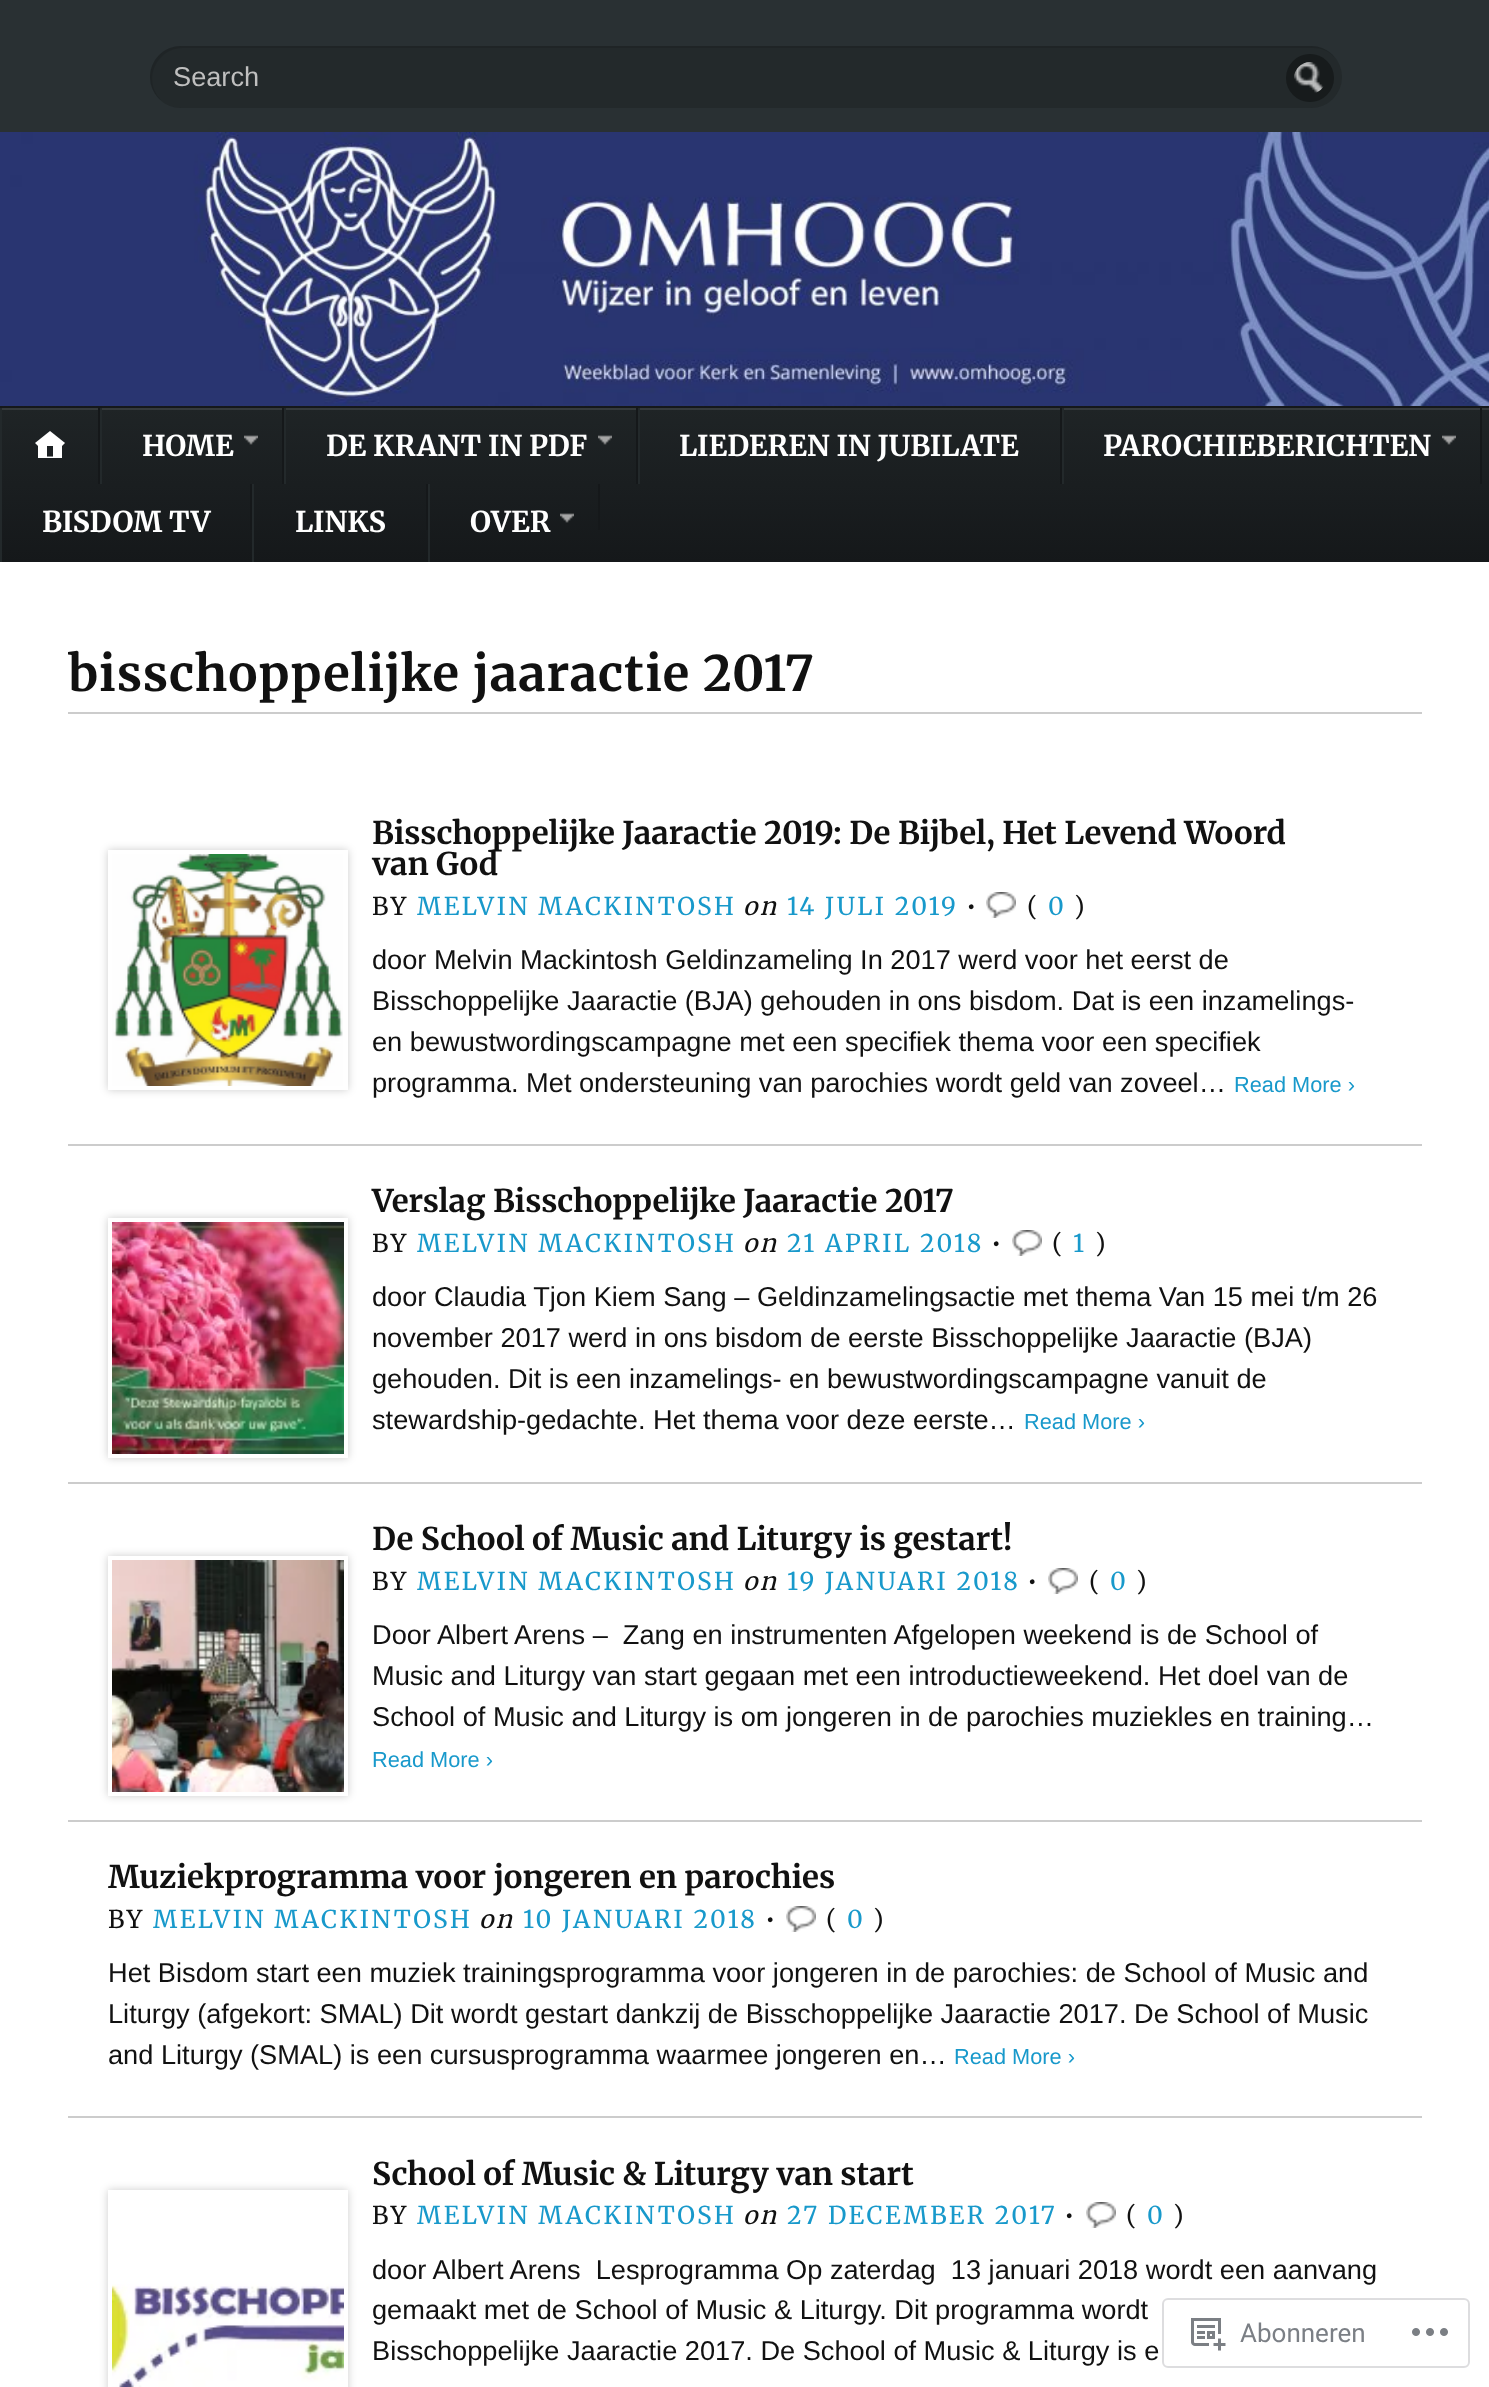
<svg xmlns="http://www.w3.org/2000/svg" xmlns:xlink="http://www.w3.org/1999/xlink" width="1489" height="2387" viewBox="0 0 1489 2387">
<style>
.cls-1{font:27.2px Liberation Sans;fill:#bfbfbf}
.cls-2{font:bold 28.75px Merriweather;fill:#ffffff}
.cls-3{font:bold 49px Merriweather;letter-spacing:1px;fill:#111111}
.cls-4{font:bold 31.25px Merriweather;fill:#111111}
.cls-5{font:24.5px Merriweather;letter-spacing:2.5px;fill:#111111}
.cls-6{font:24.5px Merriweather;letter-spacing:2.5px;fill:#1899cb}
.cls-7{font:italic 24.5px Merriweather;letter-spacing:2.5px;fill:#111111}
.cls-8{font:27.2px Liberation Sans;fill:#111111}
.cls-9{font:21.75px Liberation Sans;fill:#1899cb}
.cls-10{font:26px Roboto;fill:#7b7f85}
</style>
<defs>
<linearGradient id="g1" gradientUnits="userSpaceOnUse" x1="745" y1="254" x2="745" y2="408"><stop offset="0" stop-color="#1f2426"/><stop offset="1" stop-color="#15181a"/></linearGradient>
<linearGradient id="g2" gradientUnits="userSpaceOnUse" x1="745" y1="408" x2="745" y2="562"><stop offset="0" stop-color="#1f2426"/><stop offset="1" stop-color="#15181a"/></linearGradient>
<clipPath id="clip1"><rect x="0" y="408" width="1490" height="154"/></clipPath>
<clipPath id="clip2"><path d="M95 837H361V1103H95ZM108 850H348V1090H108Z" clip-rule="evenodd"/></clipPath>
<clipPath id="clip3"><path d="M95 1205H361V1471H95ZM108 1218H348V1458H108Z" clip-rule="evenodd"/></clipPath>
<clipPath id="clip4"><path d="M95 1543H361V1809H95ZM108 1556H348V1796H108Z" clip-rule="evenodd"/></clipPath>
<clipPath id="clip5"><path d="M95 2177H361V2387H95ZM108 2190H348V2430H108Z" clip-rule="evenodd"/></clipPath>
</defs>
<rect width="100%" height="100%" fill="#ffffff"/>
<rect fill="#293033" x="0" y="0" width="1489" height="132"/>
<rect fill="#23292b" x="150" y="46" width="1192" height="62" rx="31"/>
<path fill="#000000" fill-opacity="0.1" d="M183 48H1313C1321 48 1329 51 1334 57C1329 50 1320 46 1311 46H181C164 46 150 60 150 77C150 86 154 95 161 100C142 81 156 48 183 48Z"/>
<circle fill="#171b1c" cx="1310" cy="78" r="24"/>
<image xlink:href="image0.png" x="1294" y="62" width="30" height="31"/>
<image xlink:href="image1.png" x="0" y="132" width="1489" height="274"/>
<rect fill="url(#g1)" x="0" y="406" width="1489" height="2"/>
<rect fill="url(#g2)" x="2" y="410" width="1487" height="152"/>
<g clip-path="url(#clip1)">
<path fill="#353a3c" fill-rule="evenodd" d="M-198 210H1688V760H-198ZM0 410H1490C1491 410 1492 411 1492 412V566C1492 567 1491 568 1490 568H0C-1 568-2 567-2 566V412C-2 411-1 410 0 410Z"/>
</g>
<rect fill="#15181a" x="98" y="408" width="2" height="76"/>
<rect fill="#23292b" x="0" y="408" width="2" height="154"/>
<image xlink:href="image2.png" x="35" y="431" width="30" height="27"/>
<rect fill="#15181a" x="282" y="408" width="2" height="76"/>
<rect fill="#23292b" x="100" y="408" width="2" height="76"/>
<image xlink:href="image3.png" x="244" y="435" width="14" height="10"/>
<rect fill="#15181a" x="636" y="408" width="2" height="76"/>
<rect fill="#23292b" x="284" y="408" width="2" height="76"/>
<image xlink:href="image3.png" x="598" y="435" width="14" height="10"/>
<rect fill="#15181a" x="1060" y="408" width="2" height="76"/>
<rect fill="#23292b" x="638" y="408" width="2" height="76"/>
<rect fill="#15181a" x="1480" y="408" width="2" height="76"/>
<rect fill="#23292b" x="1062" y="408" width="2" height="76"/>
<image xlink:href="image3.png" x="1442" y="435" width="14" height="10"/>
<rect fill="#15181a" x="250" y="484" width="2" height="46"/>
<rect fill="#15181a" x="426" y="484" width="2" height="46"/>
<rect fill="#23292b" x="252" y="484" width="2" height="78"/>
<rect fill="#15181a" x="598" y="484" width="2" height="46"/>
<rect fill="#23292b" x="428" y="484" width="2" height="78"/>
<image xlink:href="image4.png" x="560" y="513" width="14" height="10"/>
<rect fill="#cccccc" x="68" y="712" width="1354" height="2"/>
<rect fill="#cccccc" x="68" y="1144" width="1354" height="2"/>
<g clip-path="url(#clip2)">
<rect fill="#000000" fill-opacity="0.2" filter="blur(4px)" x="108" y="850" width="240" height="240"/>
</g>
<image xlink:href="image5.png" x="112" y="854" width="231" height="232"/>
<image xlink:href="image6.png" x="986" y="892" width="30" height="26"/>
<rect fill="#cccccc" x="68" y="1482" width="1354" height="2"/>
<g clip-path="url(#clip3)">
<rect fill="#000000" fill-opacity="0.2" filter="blur(4px)" x="108" y="1218" width="240" height="240"/>
</g>
<image xlink:href="image7.png" x="112" y="1222" width="232" height="232"/>
<image xlink:href="image6.png" x="1012" y="1230" width="30" height="26"/>
<rect fill="#cccccc" x="68" y="1820" width="1354" height="2"/>
<g clip-path="url(#clip4)">
<rect fill="#000000" fill-opacity="0.2" filter="blur(4px)" x="108" y="1556" width="240" height="240"/>
</g>
<image xlink:href="image8.png" x="112" y="1560" width="232" height="232"/>
<image xlink:href="image6.png" x="1048" y="1568" width="30" height="26"/>
<rect fill="#cccccc" x="68" y="2116" width="1354" height="2"/>
<image xlink:href="image6.png" x="786" y="1906" width="30" height="26"/>
<g clip-path="url(#clip5)">
<rect fill="#000000" fill-opacity="0.2" filter="blur(4px)" x="108" y="2190" width="240" height="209"/>
</g>
<image xlink:href="image9.png" x="112" y="2284" width="232" height="103"/>
<image xlink:href="image6.png" x="1086" y="2202" width="30" height="26"/>
<rect fill="none" stroke="#dcdcde" stroke-opacity="0.98" stroke-width="2" x="1163" y="2299" width="306" height="68" rx="5"/>
<image xlink:href="image10.png" x="1191" y="2318" width="35" height="33"/>
<image xlink:href="image11.png" x="1412" y="2328" width="36" height="8"/>
<text class="cls-1" x="173" y="86">Search</text>
<text class="cls-2" x="142" y="456">HOME</text>
<text class="cls-2" x="326" y="456">DE KRANT IN PDF</text>
<text class="cls-2" x="679" y="456">LIEDEREN IN JUBILATE</text>
<text class="cls-2" x="1103" y="456">PAROCHIEBERICHTEN</text>
<text class="cls-2" x="42" y="532">BISDOM TV</text>
<text class="cls-2" x="295" y="532">LINKS</text>
<text class="cls-2" x="470" y="532">OVER</text>
<text class="cls-3" x="68" y="691">bisschoppelijke jaaractie 2017</text>
<text class="cls-4"><tspan x="372" y="844">Bisschoppelijke Jaaractie 2019: De Bijbel, Het Levend Woord</tspan><tspan x="372" y="875">van God</tspan></text>
<text class="cls-5" x="372" y="915">BY</text>
<text class="cls-6" x="417" y="915">MELVIN MACKINTOSH</text>
<text class="cls-7" x="743" y="915">on</text>
<text class="cls-6" x="787" y="915">14 JULI 2019</text>
<text class="cls-5" x="966" y="915">•</text>
<text class="cls-5" x="1027" y="915">(</text>
<text class="cls-6" x="1048" y="915">0</text>
<text class="cls-5" x="1074" y="915">)</text>
<text class="cls-8"><tspan x="372" y="969">door Melvin Mackintosh Geldinzameling In 2017 werd voor het eerst de</tspan><tspan x="372" y="1010">Bisschoppelijke Jaaractie (BJA) gehouden in ons bisdom. Dat is een inzamelings-</tspan><tspan x="372" y="1051">en bewustwordingscampagne met een specifiek thema voor een specifiek</tspan><tspan x="372" y="1092">programma. Met ondersteuning van parochies wordt geld van zoveel…</tspan></text>
<text class="cls-9" x="1234" y="1092">Read More ›</text>
<text class="cls-4" x="372" y="1212">Verslag Bisschoppelijke Jaaractie 2017</text>
<text class="cls-5" x="372" y="1252">BY</text>
<text class="cls-6" x="417" y="1252">MELVIN MACKINTOSH</text>
<text class="cls-7" x="743" y="1252">on</text>
<text class="cls-6" x="787" y="1252">21 APRIL 2018</text>
<text class="cls-5" x="991" y="1252">•</text>
<text class="cls-5" x="1052" y="1252">(</text>
<text class="cls-6" x="1073" y="1252">1</text>
<text class="cls-5" x="1095" y="1252">)</text>
<text class="cls-8"><tspan x="372" y="1306">door Claudia Tjon Kiem Sang – Geldinzamelingsactie met thema Van 15 mei t/m 26</tspan><tspan x="372" y="1347">november 2017 werd in ons bisdom de eerste Bisschoppelijke Jaaractie (BJA)</tspan><tspan x="372" y="1388">gehouden. Dit is een inzamelings- en bewustwordingscampagne vanuit de</tspan><tspan x="372" y="1429">stewardship-gedachte. Het thema voor deze eerste…</tspan></text>
<text class="cls-9" x="1024" y="1429">Read More ›</text>
<text class="cls-4" x="372" y="1550">De School of Music and Liturgy is gestart!</text>
<text class="cls-5" x="372" y="1590">BY</text>
<text class="cls-6" x="417" y="1590">MELVIN MACKINTOSH</text>
<text class="cls-7" x="743" y="1590">on</text>
<text class="cls-6" x="787" y="1590">19 JANUARI 2018</text>
<text class="cls-5" x="1027" y="1590">•</text>
<text class="cls-5" x="1089" y="1590">(</text>
<text class="cls-6" x="1110" y="1590">0</text>
<text class="cls-5" x="1136" y="1590">)</text>
<text class="cls-8" xml:space="preserve"><tspan x="372" y="1644">Door Albert Arens –  Zang en instrumenten Afgelopen weekend is de School of</tspan><tspan x="372" y="1685">Music and Liturgy van start gegaan met een introductieweekend. Het doel van de</tspan><tspan x="372" y="1726">School of Music and Liturgy is om jongeren in de parochies muziekles en training…</tspan></text>
<text class="cls-9" x="372" y="1767">Read More ›</text>
<text class="cls-4" x="108" y="1888">Muziekprogramma voor jongeren en parochies</text>
<text class="cls-5" x="108" y="1928">BY</text>
<text class="cls-6" x="153" y="1928">MELVIN MACKINTOSH</text>
<text class="cls-7" x="479" y="1928">on</text>
<text class="cls-6" x="523" y="1928">10 JANUARI 2018</text>
<text class="cls-5" x="765" y="1928">•</text>
<text class="cls-5" x="826" y="1928">(</text>
<text class="cls-6" x="847" y="1928">0</text>
<text class="cls-5" x="873" y="1928">)</text>
<text class="cls-8"><tspan x="108" y="1982">Het Bisdom start een muziek trainingsprogramma voor jongeren in de parochies: de School of Music and</tspan><tspan x="108" y="2023">Liturgy (afgekort: SMAL) Dit wordt gestart dankzij de Bisschoppelijke Jaaractie 2017. De School of Music</tspan><tspan x="108" y="2064">and Liturgy (SMAL) is een cursusprogramma waarmee jongeren en…</tspan></text>
<text class="cls-9" x="954" y="2064">Read More ›</text>
<text class="cls-4" x="372" y="2185">School of Music &amp; Liturgy van start</text>
<text class="cls-5" x="372" y="2224">BY</text>
<text class="cls-6" x="417" y="2224">MELVIN MACKINTOSH</text>
<text class="cls-7" x="743" y="2224">on</text>
<text class="cls-6" x="787" y="2224">27 DECEMBER 2017</text>
<text class="cls-5" x="1064" y="2224">•</text>
<text class="cls-5" x="1126" y="2224">(</text>
<text class="cls-6" x="1147" y="2224">0</text>
<text class="cls-5" x="1173" y="2224">)</text>
<text class="cls-8" xml:space="preserve"><tspan x="372" y="2279">door Albert Arens  Lesprogramma Op zaterdag  13 januari 2018 wordt een aanvang</tspan><tspan x="372" y="2319">gemaakt met de School of Music &amp; Liturgy. Dit programma wordt</tspan><tspan x="372" y="2360">Bisschoppelijke Jaaractie 2017. De School of Music &amp; Liturgy is e</tspan></text>
<text class="cls-10" x="1240" y="2342">Abonneren</text>
</svg>
